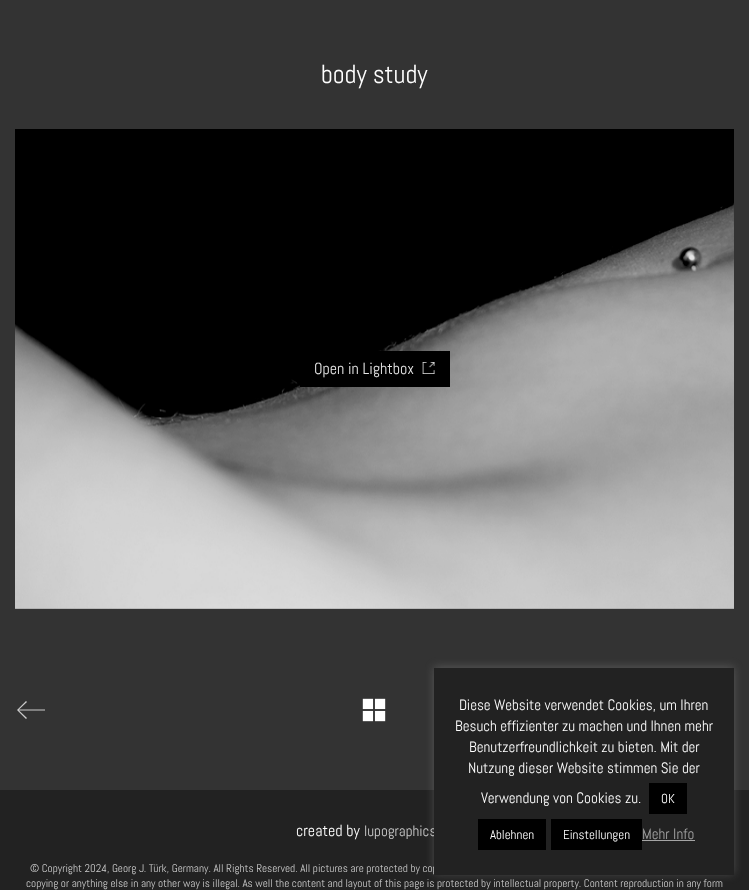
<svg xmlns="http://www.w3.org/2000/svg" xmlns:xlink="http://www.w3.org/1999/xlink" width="749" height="890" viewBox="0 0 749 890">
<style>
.cls-1{font:26px Abel;fill:#ffffff}
.cls-2{font:16px Abel;fill:#e6e6e6}
.cls-3{font:16px Abel;fill:#ffffff}
.cls-4{font:15px Abel;fill:#cccccc}
.cls-5{font:11.2px Abel;fill:#cccccc}
.cls-6{font:13px Abel;fill:#ffffff}
.cls-7{font:15px Abel;fill:#a5a5a5}
.cls-8{font:15px Abel;fill:#ffffff}
</style>
<rect width="100%" height="100%" fill="#333333"/>
<image xlink:href="image0.png" x="15" y="129" width="719" height="480"/>
<rect fill="#000000" x="300" y="351" width="150" height="36"/>
<image xlink:href="image1.png" x="422" y="362" width="13" height="12"/>
<path fill="#cccccc" d="M45 709.5H19L27 702L26 701L17 710L26 719L27 718L19 710.5H45Z"/>
<image xlink:href="image2.png" x="362" y="698" width="24" height="24"/>
<rect fill="#222222" x="0" y="790" width="749" height="100"/>
<rect fill="#acabab" fill-opacity="0.3" filter="blur(5px)" x="434" y="667" width="300" height="207"/>
<text class="cls-1" x="321" y="83">body study</text>
<text class="cls-2" x="314" y="374">Open in Lightbox</text>
<text class="cls-3" x="296" y="836">created by</text>
<text class="cls-4" x="364" y="836">lupographics</text>
<text class="cls-5" x="30" y="872">© Copyright 2024, Georg J. Türk, Germany. All Rights Reserved. All pictures are protected by cop</text>
<rect fill="#222222" x="434" y="668" width="300" height="207"/>
<rect fill="#000000" x="551" y="819" width="91" height="31"/>
<text class="cls-6" x="563" y="839">Einstellungen</text>
<rect fill="#000000" x="478" y="819" width="68" height="31"/>
<text class="cls-6" x="490" y="839">Ablehnen</text>
<rect fill="#000000" x="649" y="783" width="38" height="31"/>
<text class="cls-6" x="661" y="803">OK</text>
<text class="cls-7" x="642" y="839">Mehr Info</text>
<rect fill="#a5a5a5" x="642" y="840" width="53" height="1"/>
<text class="cls-8" x="481" y="803">Verwendung von Cookies zu.</text>
<text class="cls-8" x="468" y="773">Nutzung dieser Website stimmen Sie der</text>
<text class="cls-8" x="469" y="752">Benutzerfreundlichkeit zu bieten. Mit der</text>
<text class="cls-8" x="455" y="731">Besuch effizienter zu machen und Ihnen mehr</text>
<text class="cls-8" x="459" y="710">Diese Website verwendet Cookies, um Ihren</text>
<text class="cls-5" x="26" y="887">copying or anything else in any other way is illegal. As well the content and layout of this page is protected by intellectual property. Content reproduction in any form</text>
</svg>
